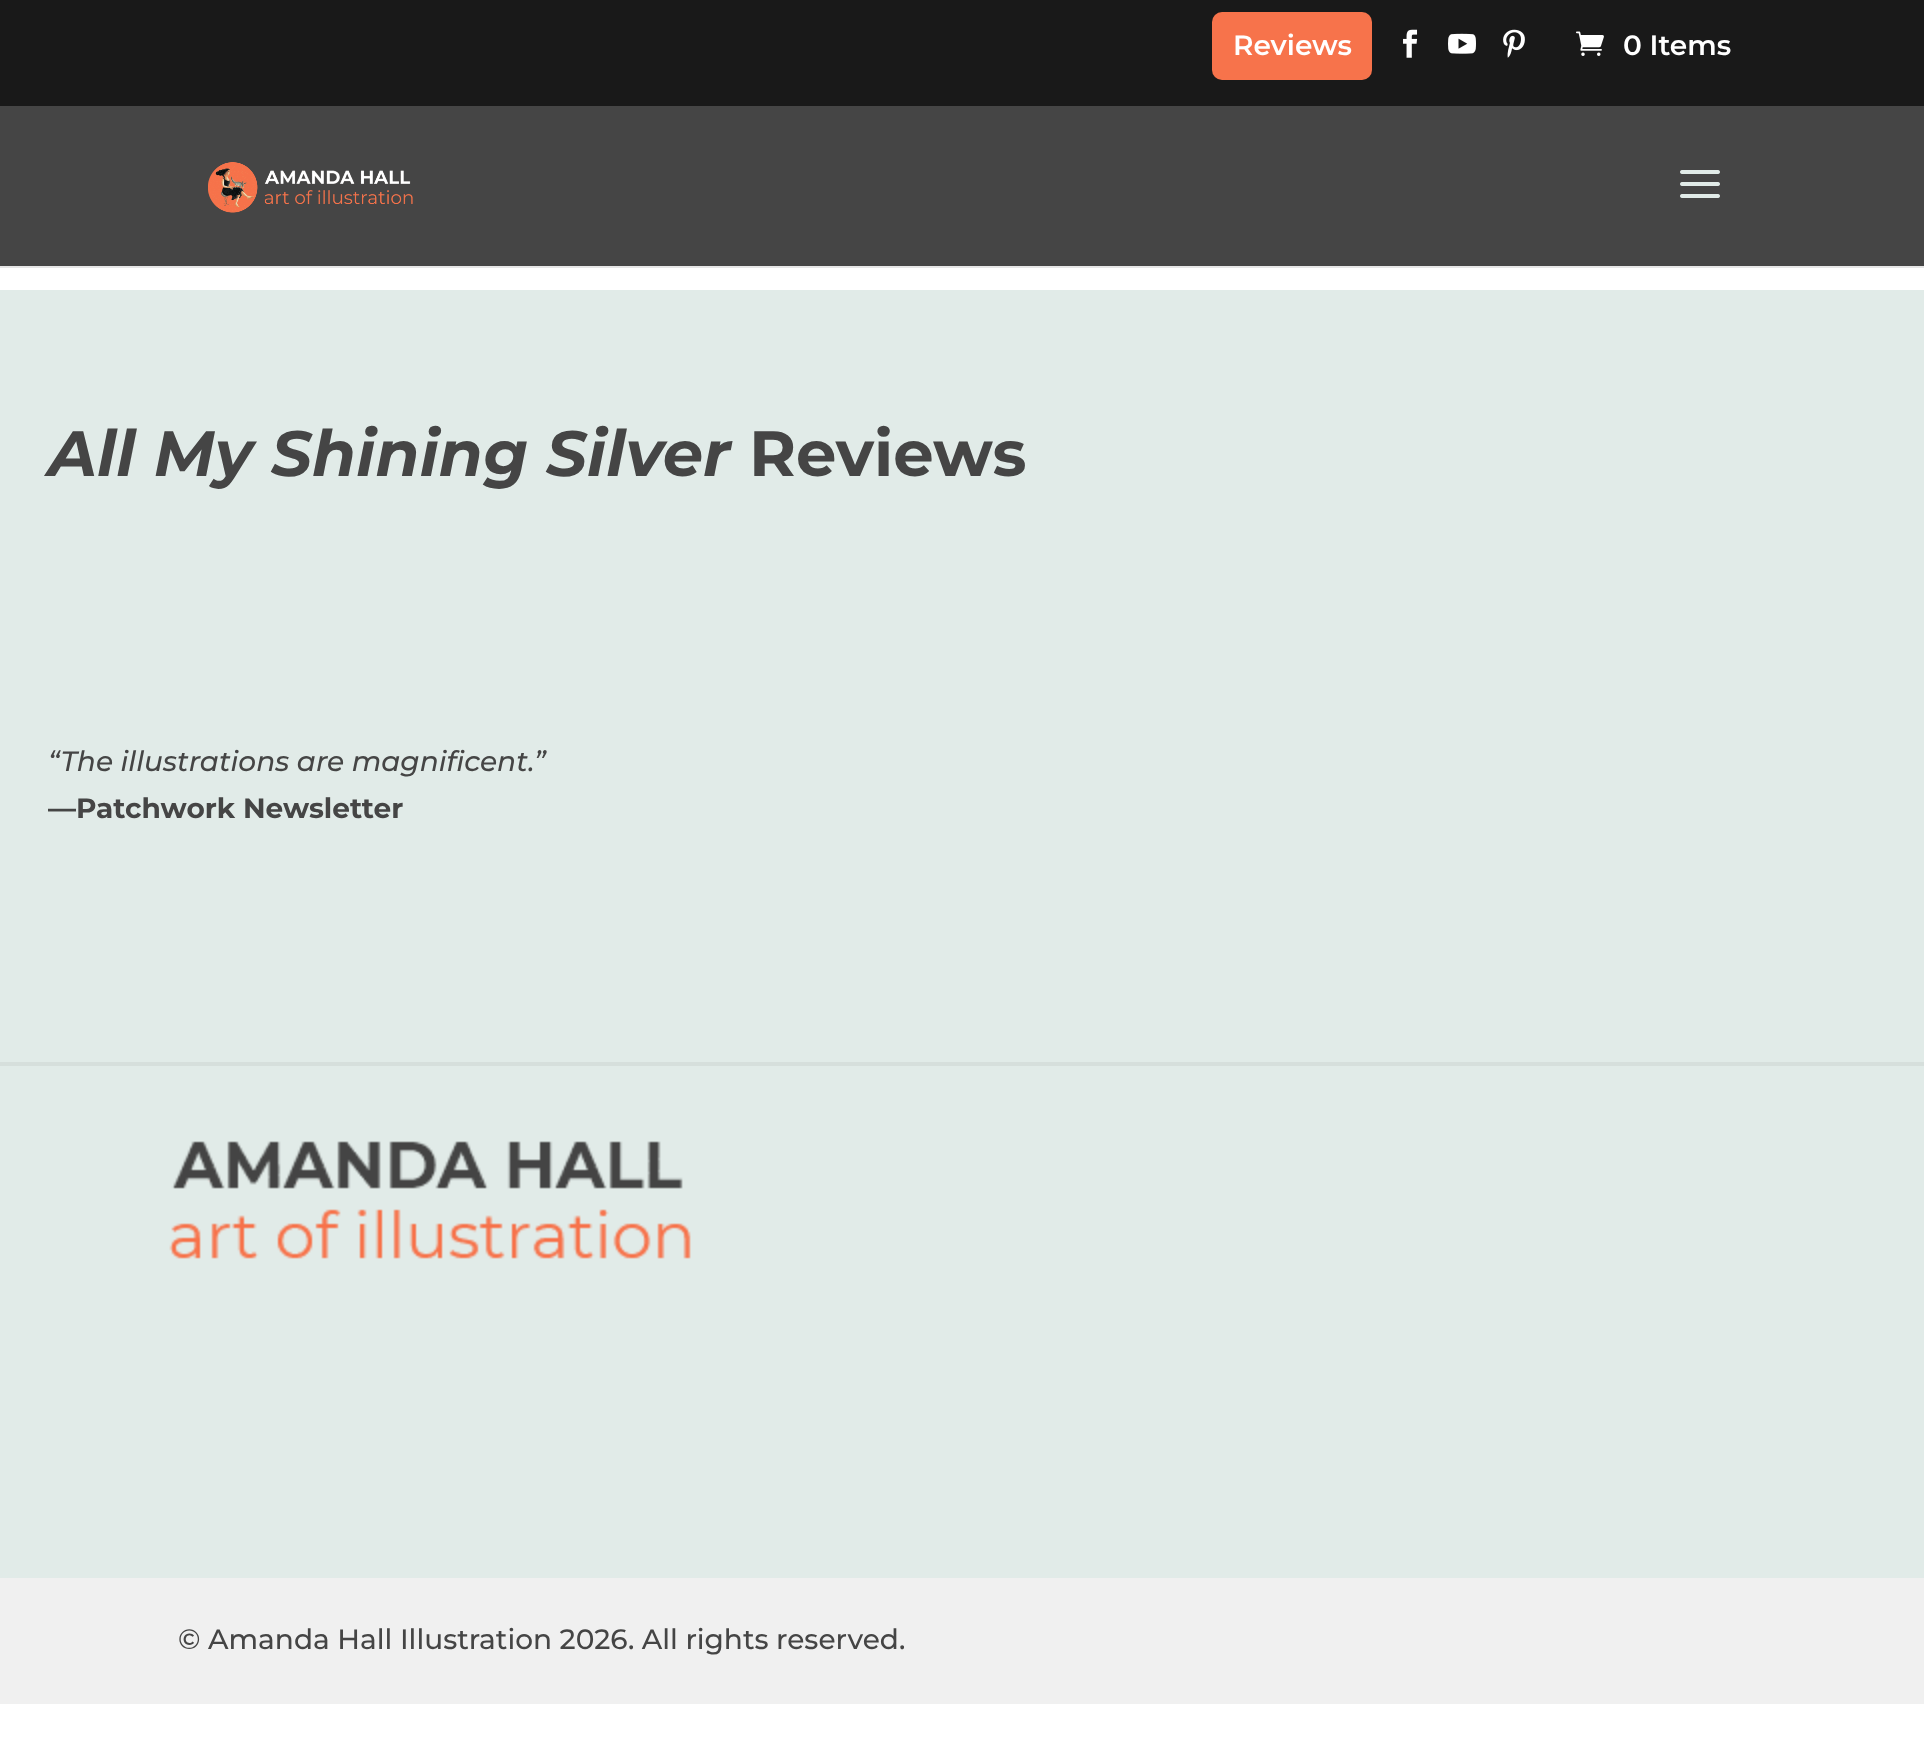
<svg xmlns="http://www.w3.org/2000/svg" xmlns:xlink="http://www.w3.org/1999/xlink" width="1924" height="1762" viewBox="0 0 1924 1762">
<style>
.cls-1{font:100 28px 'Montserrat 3';fill:#ffffff}
.cls-2{font:italic 100 64px Montserrat;fill:#454545}
.cls-3{font:100 64px Montserrat;fill:#454545}
.cls-4{font:italic 100 28px 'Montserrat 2';fill:#454545}
.cls-5{font:100 28px Montserrat;fill:#454545}
.cls-6{font:100 28px 'Montserrat 2';fill:#454545}
</style>
<rect width="100%" height="100%" fill="#ffffff"/>
<rect fill="#191919" x="0" y="0" width="1924" height="106"/>
<rect fill="#f7734b" x="1212" y="12" width="160" height="68" rx="10"/>
<image xlink:href="image0.png" x="1403" y="29" width="15" height="29"/>
<image xlink:href="image1.png" x="1448" y="33" width="28" height="21"/>
<image xlink:href="image2.png" x="1503" y="29" width="22" height="29"/>
<image xlink:href="image3.png" x="1576" y="31" width="28" height="25"/>
<rect fill="#e6e6e6" x="0" y="266" width="1924" height="2"/>
<rect fill="#454545" x="0" y="106" width="1924" height="160"/>
<image xlink:href="image4.png" x="208" y="162" width="205" height="51"/>
<image xlink:href="image5.png" x="1680" y="170" width="40" height="28"/>
<rect fill="#e1ebe8" x="0" y="290" width="1924" height="772"/>
<rect fill="#e1ebe8" x="0" y="1066" width="1924" height="512"/>
<rect fill="#d6dfdc" x="0" y="1062" width="1924" height="4"/>
<image xlink:href="image6.png" x="169" y="1141" width="522" height="118"/>
<rect fill="#f0f0f0" x="0" y="1578" width="1924" height="126"/>
<text class="cls-1" x="1233" y="55">Reviews</text>
<text class="cls-1" x="1623" y="55">0 Items</text>
<text class="cls-2" x="48" y="476">All My Shining Silver</text>
<text class="cls-3" x="749" y="476">Reviews</text>
<text class="cls-4" x="48" y="771">“The illustrations are magnificent.”</text>
<text class="cls-5" x="48" y="818">—Patchwork Newsletter</text>
<text class="cls-6" x="178" y="1649">© Amanda Hall Illustration 2026. All rights reserved.</text>
</svg>
